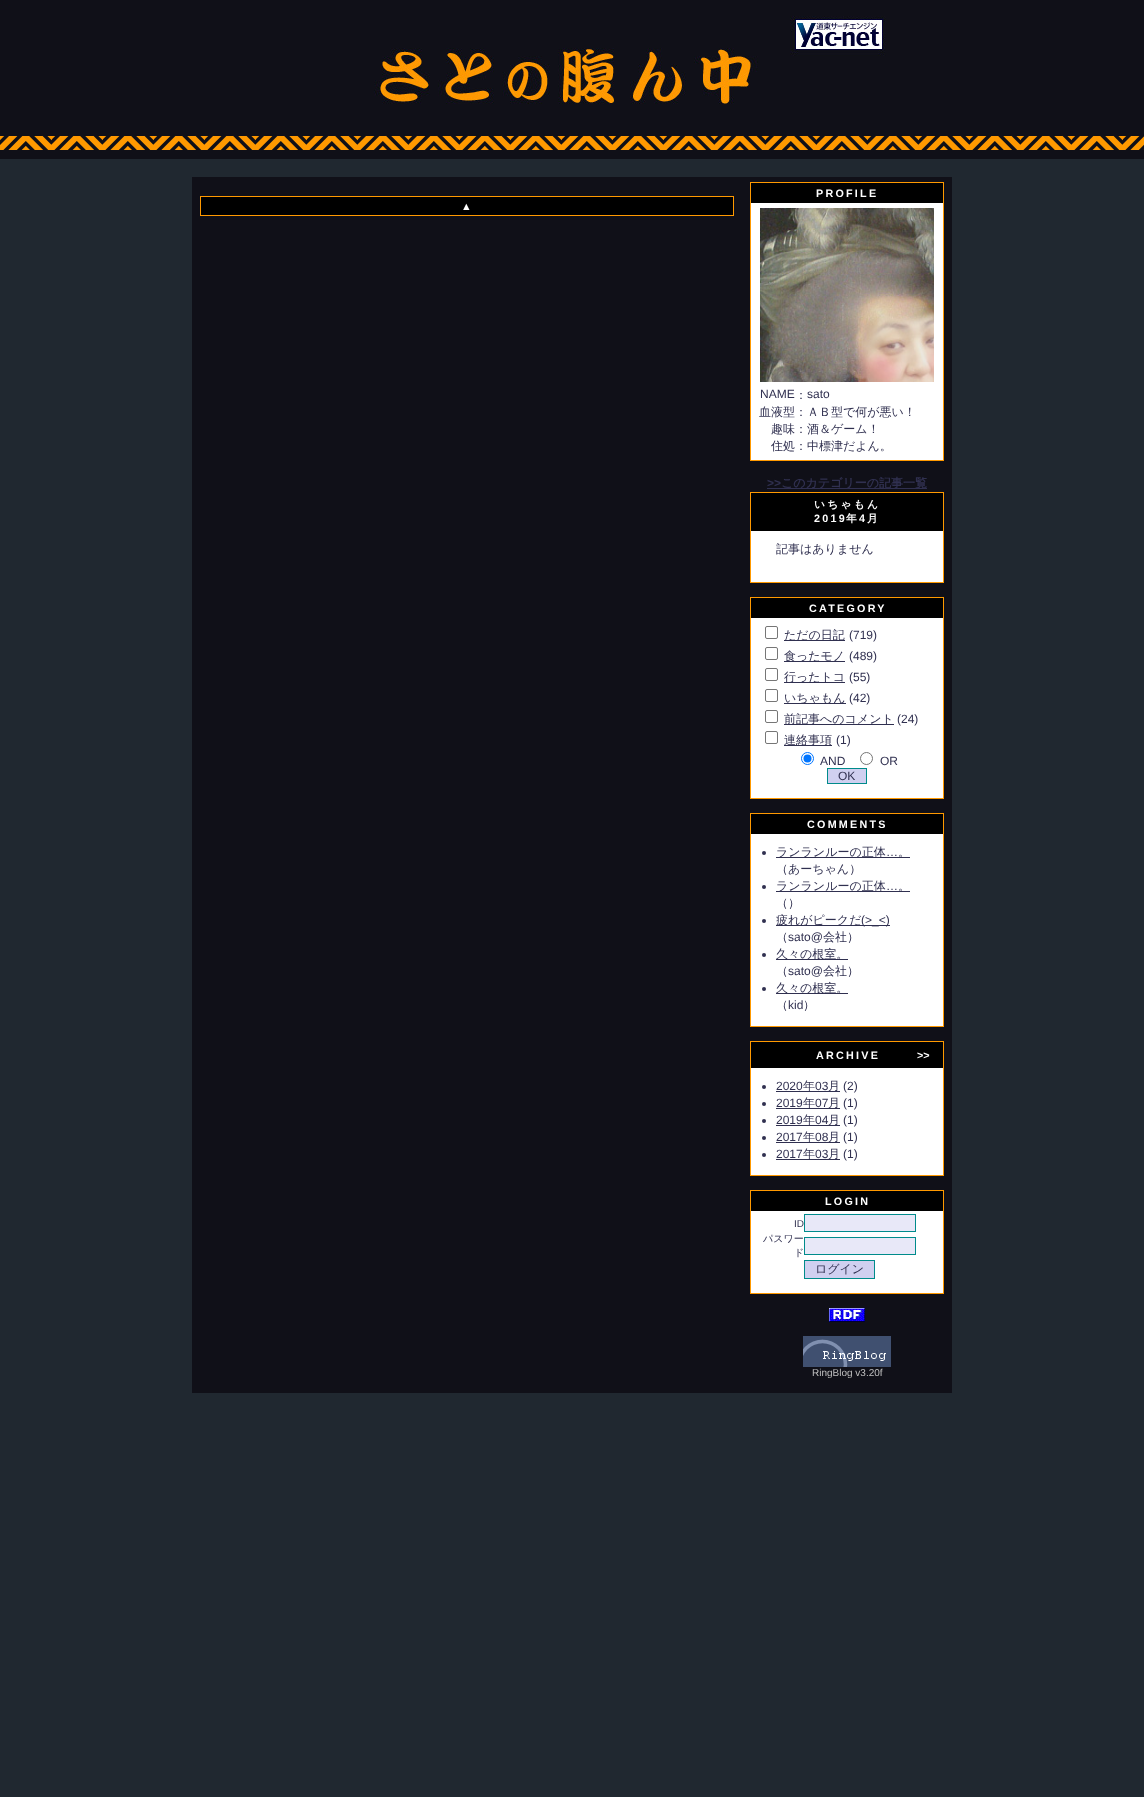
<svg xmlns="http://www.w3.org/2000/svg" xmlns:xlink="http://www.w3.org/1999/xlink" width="1144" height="1797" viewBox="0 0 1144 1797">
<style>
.cls-1{font:bold 10.75px Liberation Sans;letter-spacing:2.25px;fill:#ffffff}
.cls-2{font:12px Liberation Sans;fill:#303050}
.cls-3{font:500 12px WenQuanYi Zen Hei;fill:#303050}
.cls-4{font:bold 12px Liberation Sans;fill:#303050}
.cls-5{font:bold 12px WenQuanYi Zen Hei;fill:#303050}
.cls-6{font:bold 10.75px WenQuanYi Zen Hei;letter-spacing:2.25px;fill:#ffffff}
.cls-7{font:bold 10.75px Liberation Sans;fill:#ffffff}
.cls-8{font:10px Liberation Sans;fill:#303050}
.cls-9{font:500 10px WenQuanYi Zen Hei;fill:#303050}
.cls-10{font:10px Liberation Sans;fill:#c0c0c0}
</style>
<rect width="100%" height="100%" fill="#202830"/>
<rect fill="#101018" x="0" y="0" width="1144" height="136"/>
<image xlink:href="image0.png" x="374" y="16" width="512" height="88"/>
<rect fill="#101018" x="0" y="150" width="1144" height="9"/>
<image xlink:href="image1.png" x="0" y="136" width="1144" height="14"/>
<rect fill="#101018" x="192" y="177" width="760" height="1216"/>
<rect fill="#000000" x="201" y="197" width="532" height="18"/>
<rect fill="#ff9900" x="200" y="196" width="534" height="1"/>
<rect fill="#ff9900" x="733" y="196" width="1" height="20"/>
<rect fill="#ff9900" x="200" y="215" width="534" height="1"/>
<rect fill="#ff9900" x="200" y="196" width="1" height="20"/>
<rect fill="#ffffff" x="751" y="203" width="192" height="257"/>
<rect fill="#ff9900" x="750" y="182" width="194" height="1"/>
<rect fill="#ff9900" x="943" y="182" width="1" height="279"/>
<rect fill="#ff9900" x="750" y="460" width="194" height="1"/>
<rect fill="#ff9900" x="750" y="182" width="1" height="279"/>
<rect fill="#000000" x="751" y="183" width="192" height="20"/>
<image xlink:href="image2.png" x="760" y="208" width="174" height="174"/>
<rect fill="#303050" x="767" y="488" width="160" height="1"/>
<rect fill="#ffffff" x="751" y="531" width="192" height="51"/>
<rect fill="#ff9900" x="750" y="492" width="194" height="1"/>
<rect fill="#ff9900" x="943" y="492" width="1" height="91"/>
<rect fill="#ff9900" x="750" y="582" width="194" height="1"/>
<rect fill="#ff9900" x="750" y="492" width="1" height="91"/>
<rect fill="#000000" x="751" y="493" width="192" height="38"/>
<rect fill="#ffffff" x="751" y="618" width="192" height="180"/>
<rect fill="#ff9900" x="750" y="597" width="194" height="1"/>
<rect fill="#ff9900" x="943" y="597" width="1" height="202"/>
<rect fill="#ff9900" x="750" y="798" width="194" height="1"/>
<rect fill="#ff9900" x="750" y="597" width="1" height="202"/>
<rect fill="#000000" x="751" y="598" width="192" height="20"/>
<rect fill="none" stroke="#767676" x="765.5" y="626.5" width="12" height="12" rx="1.5"/>
<rect fill="#303050" x="784" y="640" width="61" height="1"/>
<rect fill="none" stroke="#767676" x="765.5" y="647.5" width="12" height="12" rx="1.5"/>
<rect fill="#303050" x="784" y="661" width="61" height="1"/>
<rect fill="none" stroke="#767676" x="765.5" y="668.5" width="12" height="12" rx="1.5"/>
<rect fill="#303050" x="784" y="682" width="61" height="1"/>
<rect fill="none" stroke="#767676" x="765.5" y="689.5" width="12" height="12" rx="1.5"/>
<rect fill="#303050" x="784" y="703" width="62" height="1"/>
<rect fill="none" stroke="#767676" x="765.5" y="710.5" width="12" height="12" rx="1.5"/>
<rect fill="#303050" x="784" y="724" width="110" height="1"/>
<rect fill="none" stroke="#767676" x="765.5" y="731.5" width="12" height="12" rx="1.5"/>
<rect fill="#303050" x="784" y="745" width="48" height="1"/>
<circle fill="none" stroke="#0075ff" cx="807.5" cy="758.5" r="6"/>
<circle fill="#0075ff" cx="807.5" cy="758.5" r="4"/>
<circle fill="none" stroke="#767676" cx="866.5" cy="758.5" r="6"/>
<rect fill="#d0d0f0" stroke="#008b8b" x="827.5" y="768.5" width="39" height="15"/>
<rect fill="#ffffff" x="751" y="834" width="192" height="192"/>
<rect fill="#ff9900" x="750" y="813" width="194" height="1"/>
<rect fill="#ff9900" x="943" y="813" width="1" height="214"/>
<rect fill="#ff9900" x="750" y="1026" width="194" height="1"/>
<rect fill="#ff9900" x="750" y="813" width="1" height="214"/>
<rect fill="#000000" x="751" y="814" width="192" height="20"/>
<circle fill="#303050" cx="764" cy="853" r="2"/>
<rect fill="#303050" x="776" y="857" width="134" height="1"/>
<circle fill="#303050" cx="764" cy="887" r="2"/>
<rect fill="#303050" x="776" y="891" width="134" height="1"/>
<circle fill="#303050" cx="764" cy="921" r="2"/>
<rect fill="#303050" x="776" y="925" width="114" height="1"/>
<circle fill="#303050" cx="764" cy="955" r="2"/>
<rect fill="#303050" x="776" y="959" width="72" height="1"/>
<circle fill="#303050" cx="764" cy="989" r="2"/>
<rect fill="#303050" x="776" y="993" width="72" height="1"/>
<rect fill="#ffffff" x="751" y="1068" width="192" height="107"/>
<rect fill="#ff9900" x="750" y="1041" width="194" height="1"/>
<rect fill="#ff9900" x="943" y="1041" width="1" height="135"/>
<rect fill="#ff9900" x="750" y="1175" width="194" height="1"/>
<rect fill="#ff9900" x="750" y="1041" width="1" height="135"/>
<rect fill="#000000" x="751" y="1042" width="192" height="26"/>
<circle fill="#303050" cx="764" cy="1087" r="2"/>
<rect fill="#303050" x="776" y="1091" width="64" height="1"/>
<circle fill="#303050" cx="764" cy="1104" r="2"/>
<rect fill="#303050" x="776" y="1108" width="64" height="1"/>
<circle fill="#303050" cx="764" cy="1121" r="2"/>
<rect fill="#303050" x="776" y="1125" width="64" height="1"/>
<circle fill="#303050" cx="764" cy="1138" r="2"/>
<rect fill="#303050" x="776" y="1142" width="64" height="1"/>
<circle fill="#303050" cx="764" cy="1155" r="2"/>
<rect fill="#303050" x="776" y="1159" width="64" height="1"/>
<rect fill="#ffffff" x="751" y="1211" width="192" height="82"/>
<rect fill="#ff9900" x="750" y="1190" width="194" height="1"/>
<rect fill="#ff9900" x="943" y="1190" width="1" height="104"/>
<rect fill="#ff9900" x="750" y="1293" width="194" height="1"/>
<rect fill="#ff9900" x="750" y="1190" width="1" height="104"/>
<rect fill="#000000" x="751" y="1191" width="192" height="20"/>
<rect fill="#e8e8f8" stroke="#008b8b" x="804.5" y="1214.5" width="111" height="17"/>
<rect fill="#e8e8f8" stroke="#008b8b" x="804.5" y="1237.5" width="111" height="17"/>
<rect fill="#d0d0f0" stroke="#008b8b" x="804.5" y="1260.5" width="70" height="18"/>
<image xlink:href="image3.png" x="829" y="1308" width="36" height="14"/>
<image xlink:href="image4.png" x="803" y="1336" width="88" height="31"/>
<text class="cls-1" x="461" y="210">▲</text>
<text class="cls-1" x="816" y="197">PROFILE</text>
<text class="cls-2" x="760" y="398">NAME</text>
<text class="cls-3" x="795" y="399">：</text>
<text class="cls-2" x="807" y="398">sato</text>
<text class="cls-3" x="759" y="416">血液型：ＡＢ型で何が悪い！</text>
<text class="cls-3"><tspan x="771" y="433">趣味：酒＆ゲーム！</tspan><tspan x="771" y="450">住処：中標津だよん。</tspan></text>
<text class="cls-4" x="767" y="487">&gt;&gt;</text>
<text class="cls-5" x="781" y="487">このカテゴリーの記事一覧</text>
<text class="cls-6" x="814" y="508">いちゃもん</text>
<text class="cls-1" x="814" y="522">2019</text>
<text class="cls-6" x="846" y="522">年</text>
<text class="cls-1" x="859" y="522">4</text>
<text class="cls-6" x="867" y="522">月</text>
<text class="cls-3" x="776" y="553">記事はありません</text>
<text class="cls-1" x="809" y="612">CATEGORY</text>
<text class="cls-3" x="784" y="639">ただの日記</text>
<text class="cls-2" x="849" y="639">(719)</text>
<text class="cls-3" x="784" y="660">食ったモノ</text>
<text class="cls-2" x="849" y="660">(489)</text>
<text class="cls-3" x="784" y="681">行ったトコ</text>
<text class="cls-2" x="849" y="681">(55)</text>
<text class="cls-3" x="784" y="702">いちゃもん</text>
<text class="cls-2" x="849" y="702">(42)</text>
<text class="cls-3" x="784" y="723">前記事へのコメント</text>
<text class="cls-2" x="897" y="723">(24)</text>
<text class="cls-3" x="784" y="744">連絡事項</text>
<text class="cls-2" x="836" y="744">(1)</text>
<text class="cls-2" x="820" y="765">AND</text>
<text class="cls-2" x="880" y="765">OR</text>
<text class="cls-2" x="838" y="780">OK</text>
<text class="cls-1" x="807" y="828">COMMENTS</text>
<text class="cls-3" x="776" y="856">ランランルーの正体</text>
<text class="cls-2" x="886" y="856">…</text>
<text class="cls-3" x="898" y="856">。</text>
<text class="cls-3"><tspan x="776" y="873">（あーちゃん）</tspan><tspan x="776" y="890">ランランルーの正体</tspan></text>
<text class="cls-2" x="886" y="890">…</text>
<text class="cls-3" x="898" y="890">。</text>
<text class="cls-3"><tspan x="776" y="907">（）</tspan><tspan x="776" y="924">疲れがピークだ</tspan></text>
<text class="cls-2" x="861" y="924">(&gt;_&lt;)</text>
<text class="cls-3" x="776" y="941">（</text>
<text class="cls-2" x="788" y="941">sato@</text>
<text class="cls-3" x="823" y="941">会社）</text>
<text class="cls-3"><tspan x="776" y="958">久々の根室。</tspan><tspan x="776" y="975">（</tspan></text>
<text class="cls-2" x="788" y="975">sato@</text>
<text class="cls-3" x="823" y="975">会社）</text>
<text class="cls-3"><tspan x="776" y="992">久々の根室。</tspan><tspan x="776" y="1009">（</tspan></text>
<text class="cls-2" x="788" y="1009">kid</text>
<text class="cls-3" x="803" y="1009">）</text>
<text class="cls-1" x="816" y="1059">ARCHIVE</text>
<text class="cls-7" x="917" y="1059">&gt;&gt;</text>
<text class="cls-2" x="776" y="1090">2020</text>
<text class="cls-3" x="803" y="1090">年</text>
<text class="cls-2" x="815" y="1090">03</text>
<text class="cls-3" x="828" y="1090">月</text>
<text class="cls-2" x="843" y="1090">(2)</text>
<text class="cls-2" x="776" y="1107">2019</text>
<text class="cls-3" x="803" y="1107">年</text>
<text class="cls-2" x="815" y="1107">07</text>
<text class="cls-3" x="828" y="1107">月</text>
<text class="cls-2" x="843" y="1107">(1)</text>
<text class="cls-2" x="776" y="1124">2019</text>
<text class="cls-3" x="803" y="1124">年</text>
<text class="cls-2" x="815" y="1124">04</text>
<text class="cls-3" x="828" y="1124">月</text>
<text class="cls-2" x="843" y="1124">(1)</text>
<text class="cls-2" x="776" y="1141">2017</text>
<text class="cls-3" x="803" y="1141">年</text>
<text class="cls-2" x="815" y="1141">08</text>
<text class="cls-3" x="828" y="1141">月</text>
<text class="cls-2" x="843" y="1141">(1)</text>
<text class="cls-2" x="776" y="1158">2017</text>
<text class="cls-3" x="803" y="1158">年</text>
<text class="cls-2" x="815" y="1158">03</text>
<text class="cls-3" x="828" y="1158">月</text>
<text class="cls-2" x="843" y="1158">(1)</text>
<text class="cls-1" x="825" y="1205">LOGIN</text>
<text class="cls-8" x="794" y="1227">ID</text>
<text class="cls-9" x="763" y="1242">パスワー</text>
<text class="cls-9" x="794" y="1256">ド</text>
<text class="cls-3" x="815" y="1273">ログイン</text>
<text class="cls-10" x="812" y="1376">RingBlog v3.20f</text>
</svg>
